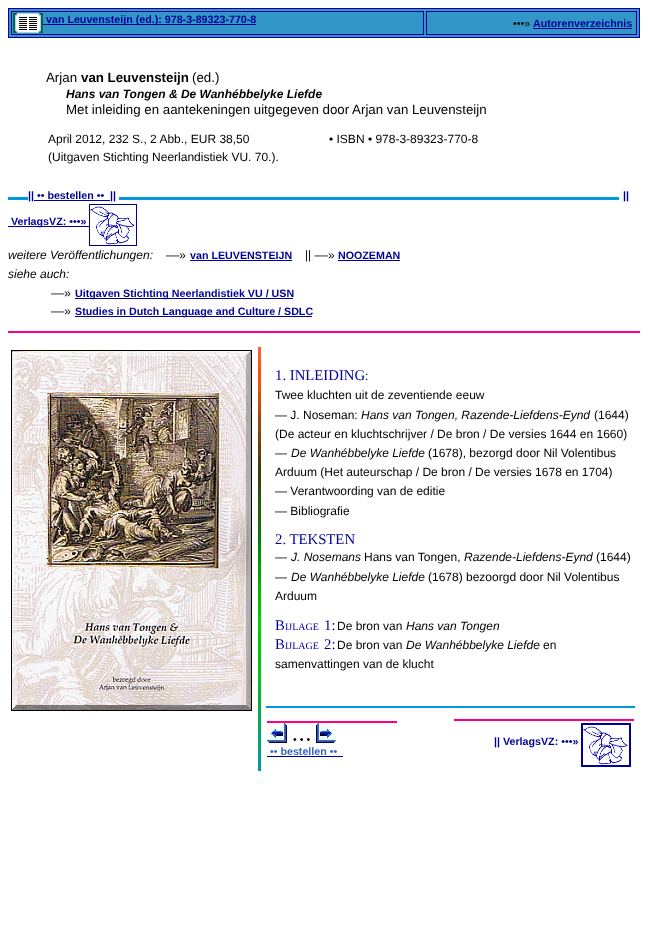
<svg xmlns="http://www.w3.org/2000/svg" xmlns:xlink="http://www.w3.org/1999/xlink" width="648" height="931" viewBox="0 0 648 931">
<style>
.cls-1{font:bold 10.7px Liberation Sans;fill:#000099}
.cls-2{font:10.7px Liberation Sans;fill:#000000}
.cls-3{font:13.3px Liberation Sans;fill:#000000}
.cls-4{font:bold 13.3px Liberation Sans;fill:#000000}
.cls-5{font:italic bold 12px Liberation Sans;fill:#000000}
.cls-6{font:12px Liberation Sans;fill:#000000}
.cls-7{font:italic 12px Liberation Sans;fill:#000000}
.cls-8{font:14.75px Liberation Serif;fill:#000099}
.cls-9{font:10px Liberation Serif;fill:#000099}
.cls-10{font:bold 10.7px Liberation Sans;fill:#3264c8}
</style>
<rect width="100%" height="100%" fill="#ffffff"/>
<rect fill="#3296c8" stroke="#000099" x="8.5" y="8.5" width="631" height="29"/>
<rect fill="none" stroke="#000099" x="11.5" y="11.5" width="412" height="23"/>
<image xlink:href="image0.png" x="13" y="13" width="30" height="20"/>
<rect fill="#000099" x="43" y="24" width="213" height="1"/>
<rect fill="none" stroke="#000099" x="426.5" y="11.5" width="210" height="23"/>
<rect fill="#000099" x="533" y="28" width="99" height="1"/>
<rect fill="#0397dd" x="8" y="197" width="20" height="3"/>
<rect fill="#000099" x="34" y="200" width="76" height="1"/>
<rect fill="#0397dd" x="119" y="197" width="500" height="3"/>
<rect fill="none" stroke="#000099" x="89.5" y="204.5" width="47" height="41"/>
<rect fill="#000099" x="8" y="226" width="81" height="1"/>
<image xlink:href="image1.png" x="90" y="206" width="45" height="39"/>
<rect fill="#000099" x="190" y="260" width="102" height="1"/>
<rect fill="#000099" x="338" y="260" width="62" height="1"/>
<rect fill="#000099" x="75" y="298" width="218" height="1"/>
<rect fill="#000099" x="75" y="316" width="237" height="1"/>
<rect fill="#ff0084" x="8" y="331" width="632" height="2"/>
<rect fill="none" stroke="#000000" x="11.5" y="350.5" width="240" height="360"/>
<image xlink:href="image2.png" x="12" y="351" width="239" height="359"/>
<image xlink:href="image3.png" x="258" y="347" width="3" height="424"/>
<rect fill="#0397dd" x="266" y="706" width="369" height="2"/>
<rect fill="#ff0084" x="267" y="721" width="130" height="2"/>
<image xlink:href="image4.png" x="267" y="723" width="20" height="20"/>
<image xlink:href="image5.png" x="316" y="723" width="20" height="20"/>
<rect fill="#000099" x="267" y="756" width="76" height="1"/>
<rect fill="#ff0084" x="454" y="719" width="180" height="2"/>
<rect fill="none" stroke="#000099" stroke-width="2" x="582" y="724" width="48" height="42"/>
<image xlink:href="image6.png" x="583" y="726" width="45" height="39"/>
<text class="cls-1" x="46" y="23">van Leuvensteijn (ed.): 978-3-89323-770-8</text>
<text class="cls-2" x="513" y="27">•••»</text>
<text class="cls-1" x="533" y="27">Autorenverzeichnis</text>
<text class="cls-3" x="46" y="82">Arjan</text>
<text class="cls-4" x="81" y="82">van Leuvensteijn</text>
<text class="cls-3" x="192" y="82">(ed.)</text>
<text class="cls-5" x="66" y="98">Hans van Tongen &amp; De Wanhébbelyke Liefde</text>
<text class="cls-3" x="66" y="114">Met inleiding en aantekeningen uitgegeven door Arjan van Leuvensteijn</text>
<text class="cls-6" x="48" y="143">April 2012, 232 S., 2 Abb., EUR 38,50</text>
<text class="cls-6" x="329" y="143">• ISBN • 978-3-89323-770-8</text>
<text class="cls-6" x="48" y="161">(Uitgaven Stichting Neerlandistiek VU. 70.).</text>
<text class="cls-1" x="28" y="199">|| •• bestellen ••</text>
<text class="cls-1" x="110" y="199">||</text>
<text class="cls-1" x="623" y="199">||</text>
<text class="cls-1" x="11" y="225">VerlagsVZ: •••»</text>
<text class="cls-7" x="8" y="259">weitere Veröffentlichungen:</text>
<text class="cls-6" x="166" y="259">––»</text>
<text class="cls-1" x="190" y="259">van LEUVENSTEIJN</text>
<text class="cls-6" x="305" y="259">|| ––»</text>
<text class="cls-1" x="338" y="259">NOOZEMAN</text>
<text class="cls-7" x="8" y="278">siehe auch:</text>
<text class="cls-6" x="51" y="297">––»</text>
<text class="cls-1" x="75" y="297">Uitgaven Stichting Neerlandistiek VU / USN</text>
<text class="cls-6" x="51" y="315">––»</text>
<text class="cls-1" x="75" y="315">Studies in Dutch Language and Culture / SDLC</text>
<text class="cls-8" x="275" y="380">1. INLEIDING</text>
<text class="cls-6" x="365" y="380">:</text>
<text class="cls-6"><tspan x="275" y="399">Twee kluchten uit de zeventiende eeuw</tspan><tspan x="275" y="419">— J. Noseman:</tspan></text>
<text class="cls-7" x="361" y="419">Hans van Tongen, Razende-Liefdens-Eynd</text>
<text class="cls-6" x="594" y="419">(1644)</text>
<text class="cls-6"><tspan x="275" y="438">(De acteur en kluchtschrijver / De bron / De versies 1644 en 1660)</tspan><tspan x="275" y="457">—</tspan></text>
<text class="cls-7" x="291" y="457">De Wanhébbelyke Liefde</text>
<text class="cls-6" x="428" y="457">(1678), bezorgd door Nil Volentibus</text>
<text class="cls-6"><tspan x="275" y="476">Arduum (Het auteurschap / De bron / De versies 1678 en 1704)</tspan><tspan x="275" y="495">— Verantwoording van de editie</tspan><tspan x="275" y="515">— Bibliografie</tspan></text>
<text class="cls-8" x="275" y="544">2. TEKSTEN</text>
<text class="cls-6" x="275" y="561">—</text>
<text class="cls-7" x="291" y="561">J. Nosemans</text>
<text class="cls-6" x="364" y="561">Hans van Tongen,</text>
<text class="cls-7" x="464" y="561">Razende-Liefdens-Eynd</text>
<text class="cls-6" x="596" y="561">(1644)</text>
<text class="cls-6" x="275" y="581">—</text>
<text class="cls-7" x="291" y="581">De Wanhébbelyke Liefde</text>
<text class="cls-6" x="428" y="581">(1678) bezoorgd door Nil Volentibus</text>
<text class="cls-6" x="275" y="600">Arduum</text>
<text class="cls-8" x="275" y="630">B</text>
<text class="cls-9" x="285" y="630">IJLAGE</text>
<text class="cls-8" x="324" y="630">1:</text>
<text class="cls-6" x="337" y="630">De bron van</text>
<text class="cls-7" x="406" y="630">Hans van Tongen</text>
<text class="cls-8" x="275" y="649">B</text>
<text class="cls-9" x="285" y="649">IJLAGE</text>
<text class="cls-8" x="324" y="649">2:</text>
<text class="cls-6" x="337" y="649">De bron van</text>
<text class="cls-7" x="406" y="649">De Wanhébbelyke Liefde</text>
<text class="cls-6" x="543" y="649">en</text>
<text class="cls-6" x="275" y="668">samenvattingen van de klucht</text>
<text class="cls-2" x="293" y="743">• • •</text>
<text class="cls-10" x="270" y="755">•• bestellen ••</text>
<text class="cls-1" x="494" y="745">|| VerlagsVZ: •••»</text>
</svg>
